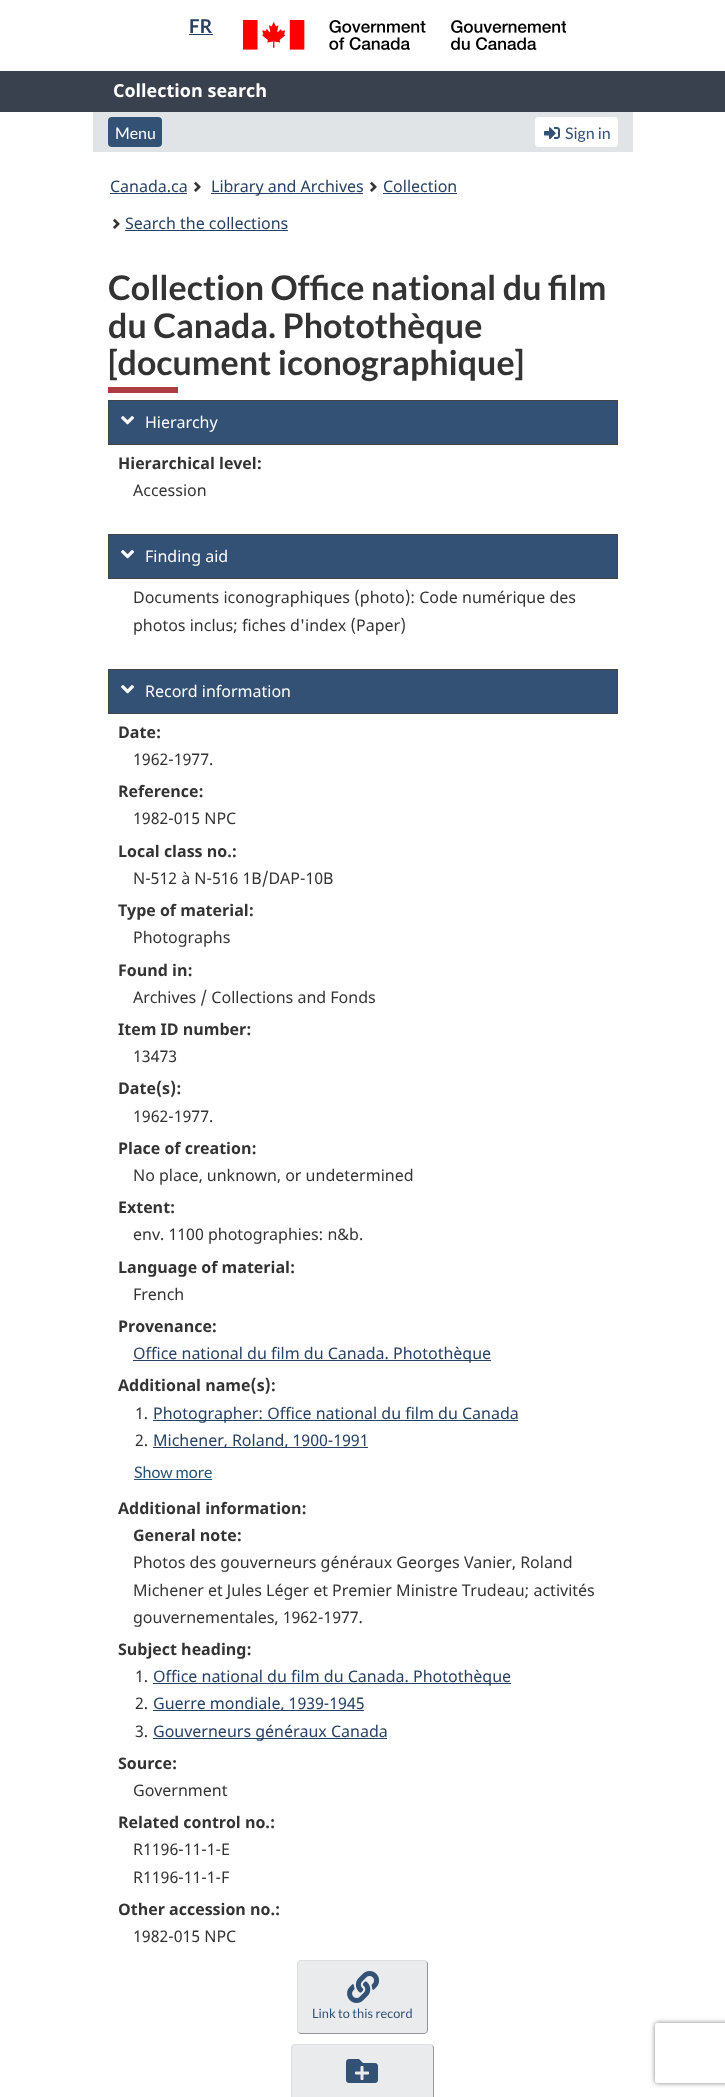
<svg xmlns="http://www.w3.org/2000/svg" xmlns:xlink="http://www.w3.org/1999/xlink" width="725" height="2097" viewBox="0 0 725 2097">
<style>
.cls-1{font:bold 19px Lato;fill:#284162}
.cls-2{font:bold 18px Noto Sans;fill:#ffffff}
.cls-3{font:16px Lato;fill:#ffffff}
.cls-4{font:16px Lato;fill:#335075}
.cls-5{font:16px Noto Sans;fill:#284162}
.cls-6{font:bold 34px Lato;fill:#333333}
.cls-7{font:16px Noto Sans;fill:#ffffff}
.cls-8{font:bold 16px Noto Sans;fill:#333333}
.cls-9{font:16px Noto Sans;fill:#333333}
.cls-10{font:16px Lato;fill:#295376}
.cls-11{font:12.75px Lato;fill:#335075}
</style>
<defs>
<clipPath id="clip1"><path d="M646 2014H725V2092H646ZM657 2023H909C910 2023 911 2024 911 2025V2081C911 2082 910 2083 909 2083H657C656 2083 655 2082 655 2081V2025C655 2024 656 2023 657 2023Z" clip-rule="evenodd"/></clipPath>
</defs>
<rect width="100%" height="100%" fill="#ffffff"/>
<rect fill="#284162" x="189" y="34" width="24" height="1"/>
<image xlink:href="image0.png" x="243" y="20" width="323" height="30"/>
<rect fill="#38414d" x="0" y="71" width="725" height="41"/>
<rect fill="#e1e4e7" x="93" y="112" width="540" height="40"/>
<rect fill="#335075" x="108" y="117" width="54" height="30" rx="4"/>
<rect fill="#ffffff" x="535" y="117" width="83" height="30" rx="4"/>
<image xlink:href="image1.png" x="544" y="127" width="16" height="13"/>
<rect fill="#284162" x="110" y="193" width="77" height="1"/>
<image xlink:href="image2.png" x="194" y="181" width="7" height="11"/>
<rect fill="#284162" x="211" y="193" width="152" height="1"/>
<image xlink:href="image2.png" x="370" y="181" width="7" height="11"/>
<rect fill="#284162" x="383" y="193" width="74" height="1"/>
<image xlink:href="image2.png" x="113" y="218" width="7" height="11"/>
<rect fill="#284162" x="125" y="230" width="163" height="1"/>
<rect fill="#af3c43" x="108" y="387" width="70" height="6"/>
<rect fill="#335075" stroke="#444444" x="108.5" y="400.5" width="509" height="44"/>
<image xlink:href="image3.png" x="121" y="416" width="13" height="9"/>
<rect fill="#335075" stroke="#444444" x="108.5" y="534.5" width="509" height="44"/>
<image xlink:href="image3.png" x="121" y="550" width="13" height="9"/>
<rect fill="#335075" stroke="#444444" x="108.5" y="669.5" width="509" height="44"/>
<image xlink:href="image3.png" x="121" y="685" width="13" height="9"/>
<rect fill="#284162" x="133" y="1360" width="358" height="1"/>
<rect fill="#284162" x="153" y="1420" width="365" height="1"/>
<rect fill="#284162" x="153" y="1447" width="215" height="1"/>
<rect fill="#295376" x="134" y="1479" width="78" height="1"/>
<rect fill="#284162" x="153" y="1683" width="358" height="1"/>
<rect fill="#284162" x="153" y="1710" width="211" height="1"/>
<rect fill="#284162" x="153" y="1738" width="234" height="1"/>
<rect fill="#eaebed" x="297" y="1960" width="131" height="74" rx="4"/>
<path fill="none" stroke="#939496" d="M426.5 1961.5C427 1962 427.5 1963 427.5 1964V2030C427.5 2031 427 2032 426.5 2032.5C426 2033 425 2033.5 424 2033.5H301C300 2033.5 299 2033 298.5 2032.5"/>
<path fill="none" stroke="#dcdee1" d="M298.5 2032.5C298 2032 297.5 2031 297.5 2030V1964C297.5 1963 298 1962 298.5 1961.5C299 1961 300 1960.5 301 1960.5H424C425 1960.5 426 1961 426.5 1961.5"/>
<image xlink:href="image4.png" x="347" y="1971" width="33" height="32"/>
<rect fill="#eaebed" x="291" y="2044" width="143" height="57" rx="4"/>
<path fill="none" stroke="#939496" d="M432.5 2045.5C433 2046 433.5 2047 433.5 2048V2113C433.5 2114 433 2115 432.5 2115.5C432 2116 431 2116.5 430 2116.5H295C294 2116.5 293 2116 292.5 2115.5"/>
<path fill="none" stroke="#dcdee1" d="M292.5 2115.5C292 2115 291.5 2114 291.5 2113V2048C291.5 2047 292 2046 292.5 2045.5C293 2045 294 2044.5 295 2044.5H430C431 2044.5 432 2045 432.5 2045.5"/>
<image xlink:href="image5.png" x="346" y="2059" width="32" height="24"/>
<g clip-path="url(#clip1)">
<rect fill="#808080" filter="blur(2.5px)" x="655" y="2023" width="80" height="60" rx="2"/>
</g>
<text class="cls-1" x="189" y="33">FR</text>
<text class="cls-2" x="113" y="97">Collection search</text>
<text class="cls-3" x="115" y="139">Menu</text>
<text class="cls-4" x="565" y="139">Sign in</text>
<text class="cls-5" x="110" y="192">Canada.ca</text>
<text class="cls-5" x="211" y="192">Library and Archives</text>
<text class="cls-5" x="383" y="192">Collection</text>
<text class="cls-5" x="125" y="229">Search the collections</text>
<text class="cls-6"><tspan x="108" y="300">Collection Office national du film</tspan><tspan x="108" y="338">du Canada. Photothèque</tspan><tspan x="108" y="375">[document iconographique]</tspan></text>
<text class="cls-7" x="145" y="428">Hierarchy</text>
<text class="cls-8" x="118" y="469">Hierarchical level:</text>
<text class="cls-9" x="133" y="496">Accession</text>
<text class="cls-7" x="145" y="562">Finding aid</text>
<text class="cls-9"><tspan x="133" y="603">Documents iconographiques (photo): Code numérique des</tspan><tspan x="133" y="631">photos inclus; fiches d'index (Paper)</tspan></text>
<text class="cls-7" x="145" y="697">Record information</text>
<text class="cls-8" x="118" y="738">Date:</text>
<text class="cls-9" x="133" y="765">1962-1977.</text>
<text class="cls-8" x="118" y="797">Reference:</text>
<text class="cls-9" x="133" y="824">1982-015 NPC</text>
<text class="cls-8" x="118" y="857">Local class no.:</text>
<text class="cls-9" x="133" y="884">N-512 à N-516 1B/DAP-10B</text>
<text class="cls-8" x="118" y="916">Type of material:</text>
<text class="cls-9" x="133" y="943">Photographs</text>
<text class="cls-8" x="118" y="976">Found in:</text>
<text class="cls-9" x="133" y="1003">Archives / Collections and Fonds</text>
<text class="cls-8" x="118" y="1035">Item ID number:</text>
<text class="cls-9" x="133" y="1062">13473</text>
<text class="cls-8" x="118" y="1094">Date(s):</text>
<text class="cls-9" x="133" y="1122">1962-1977.</text>
<text class="cls-8" x="118" y="1154">Place of creation:</text>
<text class="cls-9" x="133" y="1181">No place, unknown, or undetermined</text>
<text class="cls-8" x="118" y="1213">Extent:</text>
<text class="cls-9" x="133" y="1240">env. 1100 photographies: n&amp;b.</text>
<text class="cls-8" x="118" y="1273">Language of material:</text>
<text class="cls-9" x="133" y="1300">French</text>
<text class="cls-8" x="118" y="1332">Provenance:</text>
<text class="cls-5" x="133" y="1359">Office national du film du Canada. Photothèque</text>
<text class="cls-8" x="118" y="1391">Additional name(s):</text>
<text class="cls-9" x="135" y="1419">1.</text>
<text class="cls-5" x="153" y="1419">Photographer: Office national du film du Canada</text>
<text class="cls-9" x="135" y="1446">2.</text>
<text class="cls-5" x="153" y="1446">Michener, Roland, 1900-1991</text>
<text class="cls-10" x="134" y="1478">Show more</text>
<text class="cls-8" x="118" y="1514">Additional information:</text>
<text class="cls-8" x="133" y="1541">General note:</text>
<text class="cls-9"><tspan x="133" y="1568">Photos des gouverneurs généraux Georges Vanier, Roland</tspan><tspan x="133" y="1596">Michener et Jules Léger et Premier Ministre Trudeau; activités</tspan><tspan x="133" y="1623">gouvernementales, 1962-1977.</tspan></text>
<text class="cls-8" x="118" y="1655">Subject heading:</text>
<text class="cls-9" x="135" y="1682">1.</text>
<text class="cls-5" x="153" y="1682">Office national du film du Canada. Photothèque</text>
<text class="cls-9" x="135" y="1709">2.</text>
<text class="cls-5" x="153" y="1709">Guerre mondiale, 1939-1945</text>
<text class="cls-9" x="135" y="1737">3.</text>
<text class="cls-5" x="153" y="1737">Gouverneurs généraux Canada</text>
<text class="cls-8" x="118" y="1769">Source:</text>
<text class="cls-9" x="133" y="1796">Government</text>
<text class="cls-8" x="118" y="1828">Related control no.:</text>
<text class="cls-9"><tspan x="133" y="1855">R1196-11-1-E</tspan><tspan x="133" y="1883">R1196-11-1-F</tspan></text>
<text class="cls-8" x="118" y="1915">Other accession no.:</text>
<text class="cls-9" x="133" y="1942">1982-015 NPC</text>
<text class="cls-11" x="312" y="2018">Link to this record</text>
</svg>
